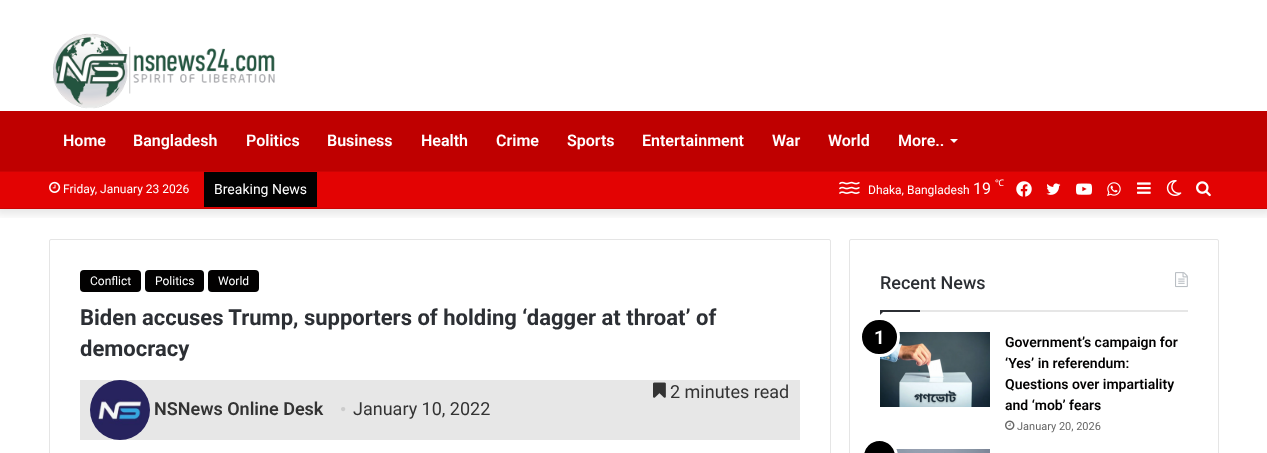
<svg xmlns="http://www.w3.org/2000/svg" xmlns:xlink="http://www.w3.org/1999/xlink" width="1267" height="453" viewBox="0 0 1267 453">
<style>
.cls-1{font:600 16px Roboto;fill:#ffffff}
.cls-2{font:12px Roboto;fill:#ffffff}
.cls-3{font:14px Roboto;fill:#ffffff}
.cls-4{font:16px Roboto;fill:#ffffff}
.cls-5{font:9px Noto Sans;fill:#ffffff}
.cls-6{font:bold 22px Roboto;fill:#2c2f34}
.cls-7{font:18px Roboto;fill:#333333}
.cls-8{font:600 18px Roboto;fill:#333333}
.cls-9{font:18px Liberation Serif;fill:#cccccc}
.cls-10{font:500 18px Roboto;fill:#2c2f34}
.cls-11{font:600 19px Roboto;fill:#ffffff}
.cls-12{font:600 14px Roboto;fill:#020101}
.cls-13{font:11px Roboto;fill:#666666}
</style>
<defs>
<clipPath id="clip1"><rect x="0" y="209" width="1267" height="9"/></clipPath>
</defs>
<rect width="100%" height="100%" fill="#ffffff"/>
<g clip-path="url(#clip1)">
<rect fill="#000000" fill-opacity="0.1" filter="blur(5px)" x="-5" y="-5" width="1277" height="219"/>
</g>
<image xlink:href="image0.png" x="53" y="33" width="222" height="76"/>
<rect fill="#bf0000" x="0" y="111" width="1267" height="60"/>
<path fill="#ffffff" d="M950 139H958L954 143Z"/>
<rect fill="#e30303" x="0" y="172" width="1267" height="36"/>
<rect fill="#cc0303" x="0" y="171" width="1267" height="1"/>
<rect fill="#cc0303" x="0" y="208" width="1267" height="1"/>
<image xlink:href="image1.png" x="49" y="181" width="12" height="12"/>
<rect fill="#020202" x="204" y="172" width="113" height="35"/>
<image xlink:href="image2.png" x="839" y="181" width="21" height="13"/>
<image xlink:href="image3.png" x="1016" y="181" width="16" height="16"/>
<image xlink:href="image4.png" x="1046" y="183" width="15" height="12"/>
<image xlink:href="image5.png" x="1076" y="183" width="16" height="12"/>
<image xlink:href="image6.png" x="1107" y="182" width="14" height="14"/>
<image xlink:href="image7.png" x="1137" y="182" width="14" height="12"/>
<image xlink:href="image8.png" x="1166" y="180" width="16" height="16"/>
<image xlink:href="image9.png" x="1196" y="181" width="15" height="16"/>
<rect fill="none" stroke="#e5e5e5" x="49.5" y="239.5" width="781" height="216" rx="1.5"/>
<rect fill="#020101" x="80" y="270" width="61" height="22" rx="4"/>
<rect fill="#020101" x="145" y="270" width="59" height="22" rx="4"/>
<rect fill="#020101" x="208" y="270" width="51" height="22" rx="4"/>
<rect fill="#e7e7e7" x="80" y="380" width="720" height="60"/>
<image xlink:href="image10.png" x="653" y="382" width="13" height="16"/>
<image xlink:href="image11.png" x="90" y="380" width="60" height="60"/>
<rect fill="none" stroke="#e5e5e5" x="849.5" y="239.5" width="369" height="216" rx="1.5"/>
<rect fill="#e6e6e6" x="920" y="310" width="268" height="2"/>
<image xlink:href="image12.png" x="1175" y="272" width="13" height="16"/>
<path fill="#2c2f34" d="M880 310H885L880 315Z"/>
<rect fill="#2c2f34" x="880" y="310" width="40" height="2"/>
<image xlink:href="image13.png" x="880" y="332" width="110" height="75"/>
<rect fill="#000000" stroke="#ffffff" stroke-width="3" x="860.5" y="318.5" width="38" height="37" rx="18.5"/>
<image xlink:href="image14.png" x="1005" y="420" width="10" height="10"/>
<image xlink:href="image15.png" x="896" y="449" width="94" height="4"/>
<circle fill="#000000" stroke="#ffffff" stroke-width="3" cx="879.5" cy="456.5" r="17"/>
<text class="cls-1" x="63" y="146">Home</text>
<text class="cls-1" x="133" y="146">Bangladesh</text>
<text class="cls-1" x="246" y="146">Politics</text>
<text class="cls-1" x="327" y="146">Business</text>
<text class="cls-1" x="421" y="146">Health</text>
<text class="cls-1" x="496" y="146">Crime</text>
<text class="cls-1" x="567" y="146">Sports</text>
<text class="cls-1" x="642" y="146">Entertainment</text>
<text class="cls-1" x="772" y="146">War</text>
<text class="cls-1" x="828" y="146">World</text>
<text class="cls-1" x="898" y="146">More..</text>
<text class="cls-2" x="63" y="193">Friday, January 23 2026</text>
<text class="cls-3" x="214" y="194">Breaking News</text>
<text class="cls-2" x="868" y="194">Dhaka, Bangladesh</text>
<text class="cls-4" x="973" y="194">19</text>
<text class="cls-5" x="995" y="186">℃</text>
<text class="cls-2" x="90" y="285">Conflict</text>
<text class="cls-2" x="155" y="285">Politics</text>
<text class="cls-2" x="218" y="285">World</text>
<text class="cls-6"><tspan x="80" y="325">Biden accuses Trump, supporters of holding ‘dagger at throat’ of</tspan><tspan x="80" y="356">democracy</tspan></text>
<text class="cls-7" x="670" y="398">2 minutes read</text>
<text class="cls-8" x="154" y="415">NSNews Online Desk</text>
<text class="cls-9" x="340" y="415">•</text>
<text class="cls-7" x="353" y="415">January 10, 2022</text>
<text class="cls-10" x="880" y="289">Recent News</text>
<text class="cls-11" x="874" y="344">1</text>
<text class="cls-12"><tspan x="1005" y="347">Government’s campaign for</tspan><tspan x="1005" y="368">‘Yes’ in referendum:</tspan><tspan x="1005" y="389">Questions over impartiality</tspan><tspan x="1005" y="410">and ‘mob’ fears</tspan></text>
<text class="cls-13" x="1017" y="430">January 20, 2026</text>
</svg>
